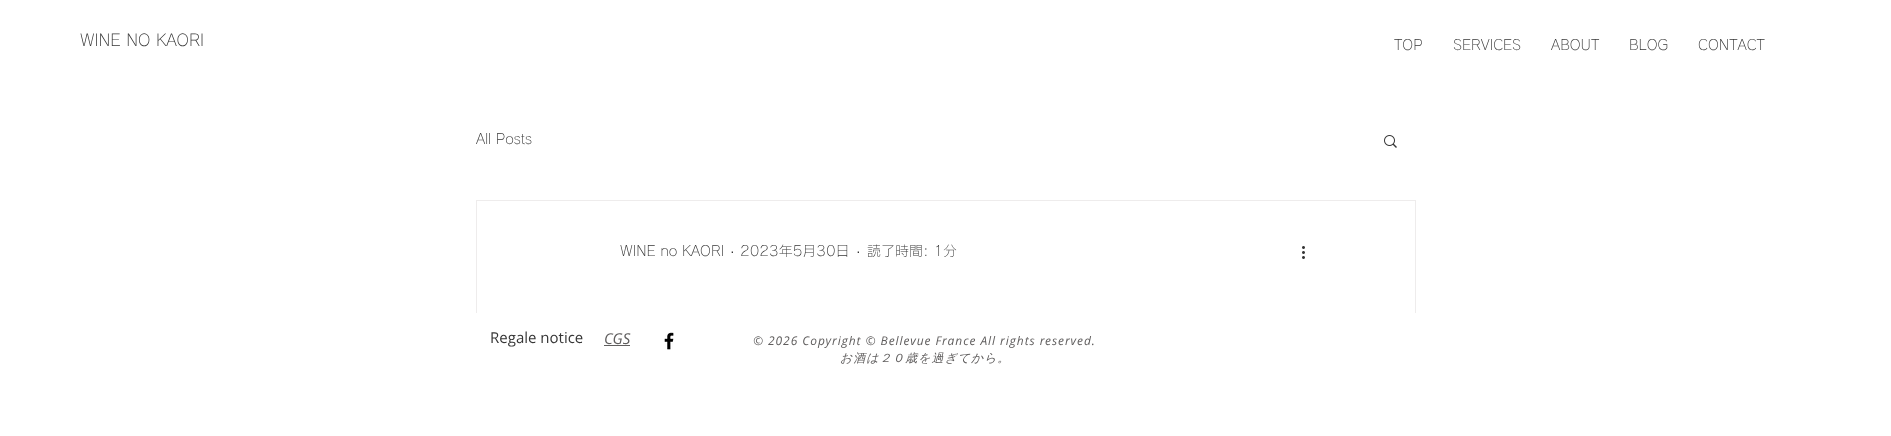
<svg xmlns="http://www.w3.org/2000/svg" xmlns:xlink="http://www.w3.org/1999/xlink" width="1891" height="436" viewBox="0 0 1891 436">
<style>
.cls-1{font:300 16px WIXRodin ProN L;fill:#363636}
.cls-2{font:300 14px WIXRodin ProN L;fill:#363636}
.cls-3{font:14px Liberation Sans;fill:#363636}
.cls-4{font:15px Open Sans;fill:#363636}
.cls-5{font:italic 15px Open Sans;fill:#605e5e}
.cls-6{font:italic 12px Open Sans;letter-spacing:0.95px;fill:#605e5e}
.cls-7{font:italic 500 12px WenQuanYi Zen Hei;letter-spacing:0.95px;fill:#605e5e}
</style>
<rect width="100%" height="100%" fill="#ffffff"/>
<image xlink:href="image0.png" x="1384" y="135" width="13" height="13"/>
<rect fill="none" stroke="#eeecec" x="476.5" y="200.5" width="939" height="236"/>
<image xlink:href="image1.png" x="1302" y="246" width="3" height="13"/>
<rect fill="#ffffff" x="476" y="313" width="940" height="123"/>
<rect fill="#605e5e" x="604" y="345" width="26" height="1"/>
<image xlink:href="image2.png" x="664" y="332" width="10" height="18"/>
<text class="cls-1" x="80" y="46">WINE NO KAORI</text>
<text class="cls-2" x="1394" y="50">TOP</text>
<text class="cls-2" x="1453" y="50">SERVICES</text>
<text class="cls-2" x="1551" y="50">ABOUT</text>
<text class="cls-2" x="1629" y="50">BLOG</text>
<text class="cls-2" x="1698" y="50">CONTACT</text>
<text class="cls-2" x="476" y="144">All Posts</text>
<text class="cls-2" x="620" y="256">WINE no KAORI</text>
<text class="cls-3" x="730" y="256">·</text>
<text class="cls-2" x="740" y="256">2023年5月30日</text>
<text class="cls-3" x="856" y="256">·</text>
<text class="cls-2" x="867" y="256">読了時間: 1分</text>
<text class="cls-4" x="490" y="343">Regale notice</text>
<text class="cls-5" x="604" y="344">CGS</text>
<text class="cls-6" x="753" y="345">© 2026 Copyright © Bellevue France All rights reserved.</text>
<text class="cls-7" x="840" y="362">お酒は２０歳を過ぎてから。</text>
</svg>
